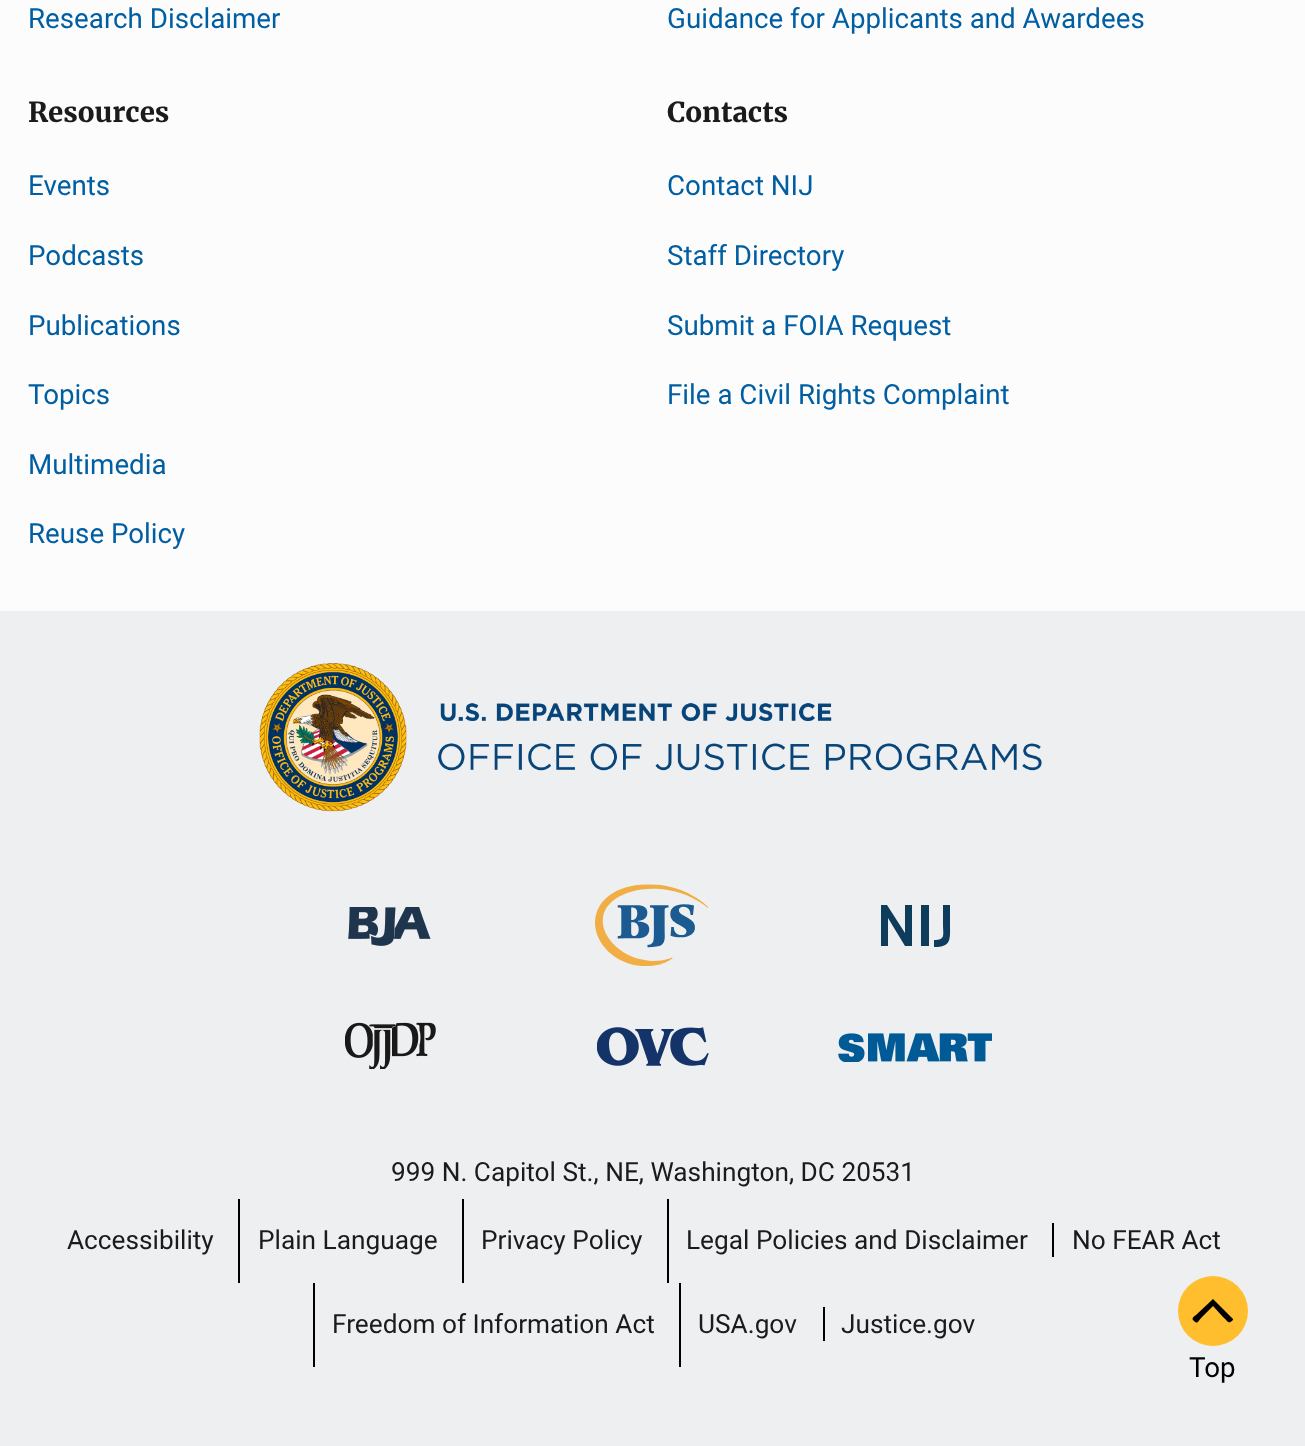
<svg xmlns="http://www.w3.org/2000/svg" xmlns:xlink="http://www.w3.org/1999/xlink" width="1305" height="1446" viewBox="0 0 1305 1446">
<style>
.cls-1{font:27.75px Roboto;fill:#005ea2}
.cls-2{font:bold 27.5px Merriweather;fill:#1b1b1b}
.cls-3{font:26.25px Roboto;fill:#1b1b1b}
.cls-4{font:27.75px Roboto;fill:#000000}
</style>
<rect width="100%" height="100%" fill="#fcfcfc"/>
<rect fill="#edeff0" x="0" y="611" width="1305" height="835"/>
<image xlink:href="image0.png" x="259" y="663" width="783" height="149"/>
<image xlink:href="image1.png" x="348" y="907" width="83" height="39"/>
<image xlink:href="image2.png" x="595" y="884" width="114" height="82"/>
<path fill="#0e3c5d" d="M881 905H887L905 933V905H912V946H905L888 918V946H881Z"/>
<rect fill="#0e3c5d" x="921" y="905" width="8" height="41"/>
<path fill="#0e3c5d" d="M934 940C946 940 943 935 943 924V905H950V924C950 939 952 947 934 947Z"/>
<image xlink:href="image3.png" x="345" y="1022" width="91" height="47"/>
<image xlink:href="image4.png" x="597" y="1027" width="112" height="39"/>
<image xlink:href="image5.png" x="838" y="1033" width="154" height="29"/>
<rect fill="#000000" x="238" y="1199" width="2" height="84"/>
<rect fill="#000000" x="462" y="1199" width="2" height="84"/>
<rect fill="#000000" x="667" y="1199" width="2" height="84"/>
<rect fill="#000000" x="1052" y="1223" width="2" height="34"/>
<rect fill="#000000" x="313" y="1283" width="2" height="84"/>
<rect fill="#000000" x="679" y="1283" width="2" height="84"/>
<rect fill="#000000" x="823" y="1307" width="2" height="34"/>
<circle fill="#ffbe2e" cx="1213" cy="1311" r="35"/>
<path fill="#000000" d="M1193 1320C1191 1318 1196 1315 1196 1315L1213 1299L1233 1319V1320C1228 1325 1228 1321 1223 1317L1213 1306L1202 1317C1197 1322 1198 1325 1193 1320Z"/>
<text class="cls-1" x="28" y="28">Research Disclaimer</text>
<text class="cls-1" x="667" y="28">Guidance for Applicants and Awardees</text>
<text class="cls-2" x="28" y="122">Resources</text>
<text class="cls-1" x="28" y="195">Events</text>
<text class="cls-1" x="28" y="265">Podcasts</text>
<text class="cls-1" x="28" y="335">Publications</text>
<text class="cls-1" x="28" y="404">Topics</text>
<text class="cls-1" x="28" y="474">Multimedia</text>
<text class="cls-1" x="28" y="543">Reuse Policy</text>
<text class="cls-2" x="667" y="122">Contacts</text>
<text class="cls-1" x="667" y="195">Contact NIJ</text>
<text class="cls-1" x="667" y="265">Staff Directory</text>
<text class="cls-1" x="667" y="335">Submit a FOIA Request</text>
<text class="cls-1" x="667" y="404">File a Civil Rights Complaint</text>
<text class="cls-3" x="391" y="1181">999 N. Capitol St., NE, Washington, DC 20531</text>
<text class="cls-3" x="67" y="1249">Accessibility</text>
<text class="cls-3" x="258" y="1249">Plain Language</text>
<text class="cls-3" x="481" y="1249">Privacy Policy</text>
<text class="cls-3" x="686" y="1249">Legal Policies and Disclaimer</text>
<text class="cls-3" x="1072" y="1249">No FEAR Act</text>
<text class="cls-3" x="332" y="1333">Freedom of Information Act</text>
<text class="cls-3" x="698" y="1333">USA.gov</text>
<text class="cls-3" x="841" y="1333">Justice.gov</text>
<text class="cls-4" x="1189" y="1377">Top</text>
</svg>
